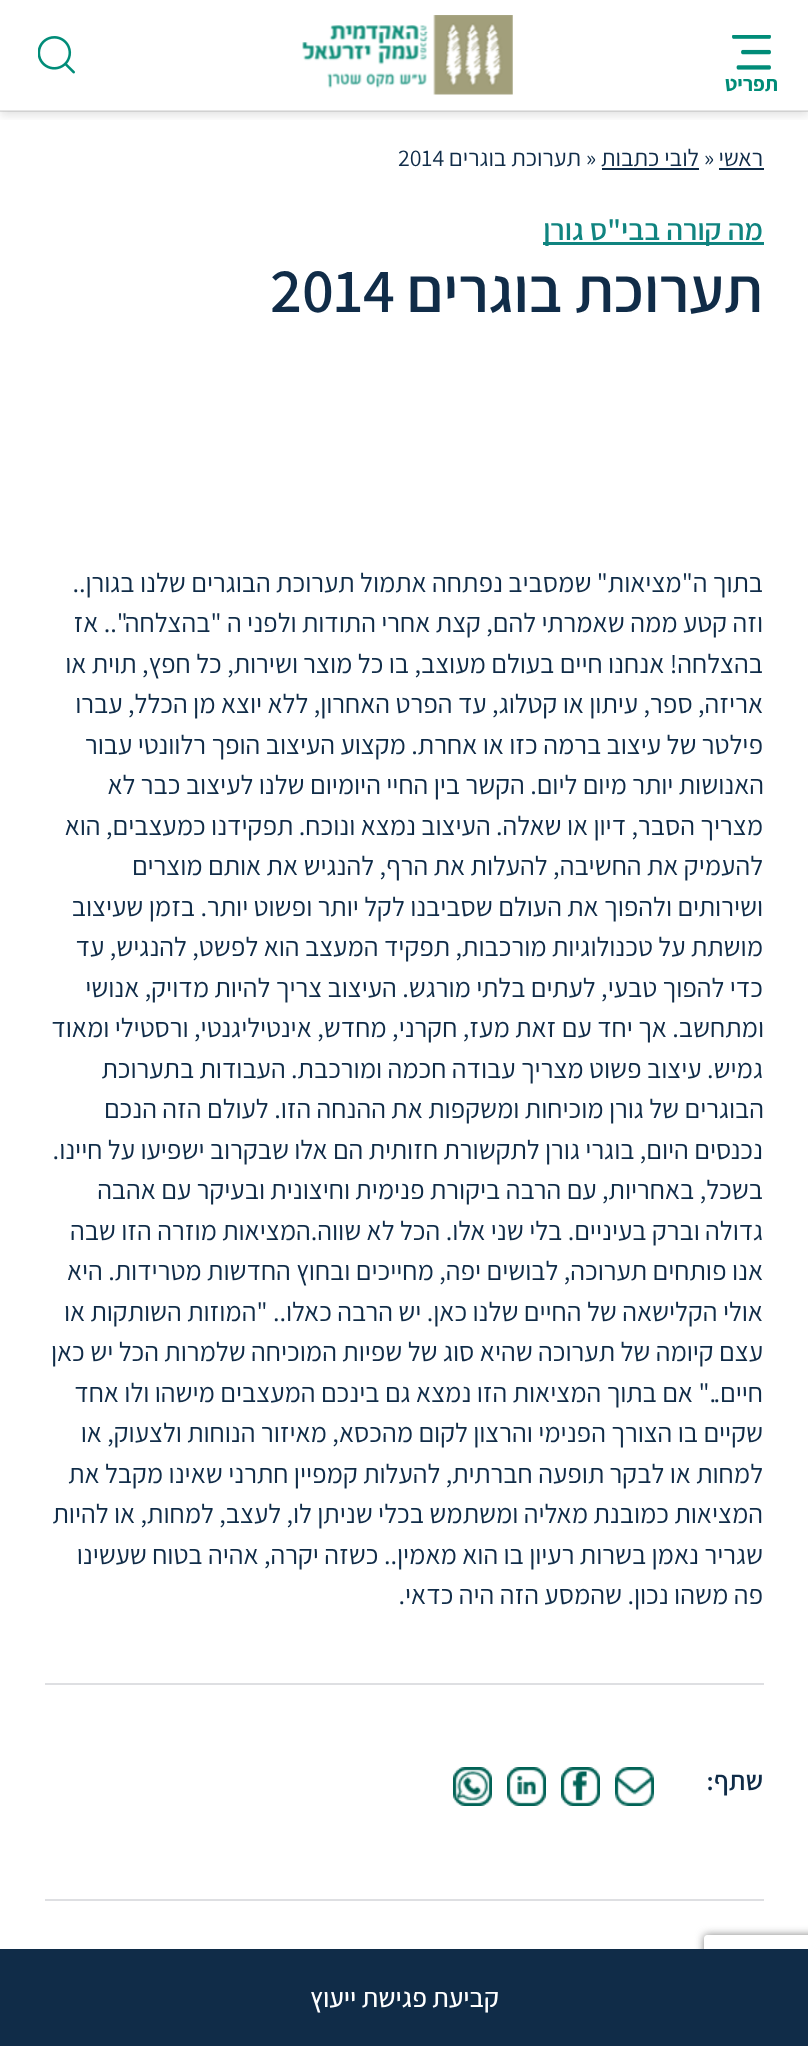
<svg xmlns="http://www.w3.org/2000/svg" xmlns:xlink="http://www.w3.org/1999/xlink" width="808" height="2046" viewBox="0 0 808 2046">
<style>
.cls-1{font:bold 21px Assistant;direction:rtl;fill:#008c78}
.cls-2{font:24px Assistant;direction:rtl;fill:#102c48}
.cls-3{font:24px Assistant;fill:#102c48}
.cls-4{font:600 30px Assistant;direction:rtl;fill:#108480}
.cls-5{font:600 63px Assistant;direction:rtl;fill:#102c48}
.cls-6{font:600 63px Assistant;fill:#102c48}
.cls-7{font:27px Assistant;direction:rtl;fill:#102c48}
.cls-8{font:600 27px Assistant;direction:rtl;fill:#102c48}
.cls-9{font:500 27px Assistant;direction:rtl;fill:#ffffff}
</style>
<defs>
<clipPath id="clip1"><rect x="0" y="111" width="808" height="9"/></clipPath>
<clipPath id="clip2"><path d="M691 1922H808V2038H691ZM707 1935H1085C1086.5 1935 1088 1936.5 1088 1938V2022C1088 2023.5 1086.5 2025 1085 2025H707C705.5 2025 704 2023.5 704 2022V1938C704 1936.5 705.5 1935 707 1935Z" clip-rule="evenodd"/></clipPath>
</defs>
<rect width="100%" height="100%" fill="#ffffff"/>
<g clip-path="url(#clip1)">
<rect fill="#000000" fill-opacity="0.1" filter="blur(4.5px)" x="0" y="5" width="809" height="111"/>
</g>
<rect fill="#000000" fill-opacity="0.1" x="0" y="110" width="808" height="2"/>
<image xlink:href="image0.png" x="302" y="15" width="211" height="80"/>
<image xlink:href="image1.png" x="38" y="36" width="37" height="38"/>
<image xlink:href="image2.png" x="732" y="35" width="39" height="35"/>
<rect fill="#102c48" x="719" y="168" width="45" height="2"/>
<rect fill="#102c48" x="602" y="168" width="97" height="2"/>
<rect fill="#108480" x="543" y="242" width="221" height="3"/>
<rect fill="#dedfe2" x="45" y="1683" width="719" height="2"/>
<rect fill="#dedfe2" x="45" y="1899" width="719" height="2"/>
<image xlink:href="image3.png" x="615" y="1767" width="39" height="39"/>
<image xlink:href="image4.png" x="561" y="1767" width="39" height="39"/>
<image xlink:href="image5.png" x="507" y="1767" width="39" height="39"/>
<image xlink:href="image6.png" x="453" y="1767" width="39" height="39"/>
<g clip-path="url(#clip2)">
<rect fill="#808080" filter="blur(4px)" x="704" y="1935" width="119" height="90" rx="3"/>
</g>
<rect fill="#102c48" x="0" y="1949" width="808" height="97"/>
<text class="cls-1" x="778" y="91">תפריט</text>
<text class="cls-2" x="763" y="166">ראשי</text>
<text class="cls-3" x="704" y="166">»</text>
<text class="cls-2" x="699" y="166">לובי כתבות</text>
<text class="cls-3" x="586" y="166">»</text>
<text class="cls-2" x="581" y="166">תערוכת בוגרים</text>
<text class="cls-3" x="398" y="166">2014</text>
<text class="cls-4" x="763" y="240">מה קורה בבי"ס גורן</text>
<text class="cls-5" x="763" y="312">תערוכת בוגרים</text>
<text class="cls-6" x="270" y="312">2014</text>
<text class="cls-7"><tspan x="763" y="592">בתוך ה"מציאות" שמסביב נפתחה אתמול תערוכת הבוגרים שלנו בגורן..</tspan><tspan x="763" y="632">וזה קטע ממה שאמרתי להם, קצת אחרי התודות ולפני ה "בהצלחה".. אז</tspan><tspan x="763" y="673">בהצלחה! אנחנו חיים בעולם מעוצב, בו כל מוצר ושירות, כל חפץ, תוית או</tspan><tspan x="763" y="713">אריזה, ספר, עיתון או קטלוג, עד הפרט האחרון, ללא יוצא מן הכלל, עברו</tspan><tspan x="763" y="754">פילטר של עיצוב ברמה כזו או אחרת. מקצוע העיצוב הופך רלוונטי עבור</tspan></text>
<text class="cls-7" x="764" y="794">האנושות יותר מיום ליום. הקשר בין החיי היומיום שלנו לעיצוב כבר לא</text>
<text class="cls-7"><tspan x="763" y="835">מצריך הסבר, דיון או שאלה. העיצוב נמצא ונוכח. תפקידנו כמעצבים, הוא</tspan><tspan x="763" y="875">להעמיק את החשיבה, להעלות את הרף, להנגיש את אותם מוצרים</tspan><tspan x="763" y="916">ושירותים ולהפוך את העולם שסביבנו לקל יותר ופשוט יותר. בזמן שעיצוב</tspan><tspan x="763" y="956">מושתת על טכנולוגיות מורכבות, תפקיד המעצב הוא לפשט, להנגיש, עד</tspan><tspan x="763" y="997">כדי להפוך טבעי, לעתים בלתי מורגש. העיצוב צריך להיות מדויק, אנושי</tspan></text>
<text class="cls-7" x="764" y="1037">ומתחשב. אך יחד עם זאת מעז, חקרני, מחדש, אינטיליגנטי, ורסטילי ומאוד</text>
<text class="cls-7" x="763" y="1078">גמיש. עיצוב פשוט מצריך עבודה חכמה ומורכבת. העבודות בתערוכת</text>
<text class="cls-7" x="764" y="1118">הבוגרים של גורן מוכיחות ומשקפות את ההנחה הזו. לעולם הזה הנכם</text>
<text class="cls-7"><tspan x="763" y="1159">נכנסים היום, בוגרי גורן לתקשורת חזותית הם אלו שבקרוב ישפיעו על חיינו.</tspan><tspan x="763" y="1199">בשכל, באחריות, עם הרבה ביקורת פנימית וחיצונית ובעיקר עם אהבה</tspan><tspan x="763" y="1240">גדולה וברק בעיניים. בלי שני אלו. הכל לא שווה.המציאות מוזרה הזו שבה</tspan><tspan x="763" y="1280">אנו פותחים תערוכה, לבושים יפה, מחייכים ובחוץ החדשות מטרידות. היא</tspan><tspan x="763" y="1321">אולי הקלישאה של החיים שלנו כאן. יש הרבה כאלו.. "המוזות השותקות או</tspan><tspan x="763" y="1361">עצם קיומה של תערוכה שהיא סוג של שפיות המוכיחה שלמרות הכל יש כאן</tspan><tspan x="763" y="1402">חיים.." אם בתוך המציאות הזו נמצא גם בינכם המעצבים מישהו ולו אחד</tspan><tspan x="763" y="1442">שקיים בו הצורך הפנימי והרצון לקום מהכסא, מאיזור הנוחות ולצעוק, או</tspan><tspan x="763" y="1483">למחות או לבקר תופעה חברתית, להעלות קמפיין חתרני שאינו מקבל את</tspan><tspan x="763" y="1523">המציאות כמובנת מאליה ומשתמש בכלי שניתן לו, לעצב, למחות, או להיות</tspan><tspan x="763" y="1564">שגריר נאמן בשרות רעיון בו הוא מאמין.. כשזה יקרה, אהיה בטוח שעשינו</tspan><tspan x="763" y="1604">פה משהו נכון. שהמסע הזה היה כדאי.</tspan></text>
<text class="cls-8" x="763" y="1790">שתף:</text>
<text class="cls-9" x="499" y="2007">קביעת פגישת ייעוץ</text>
</svg>
